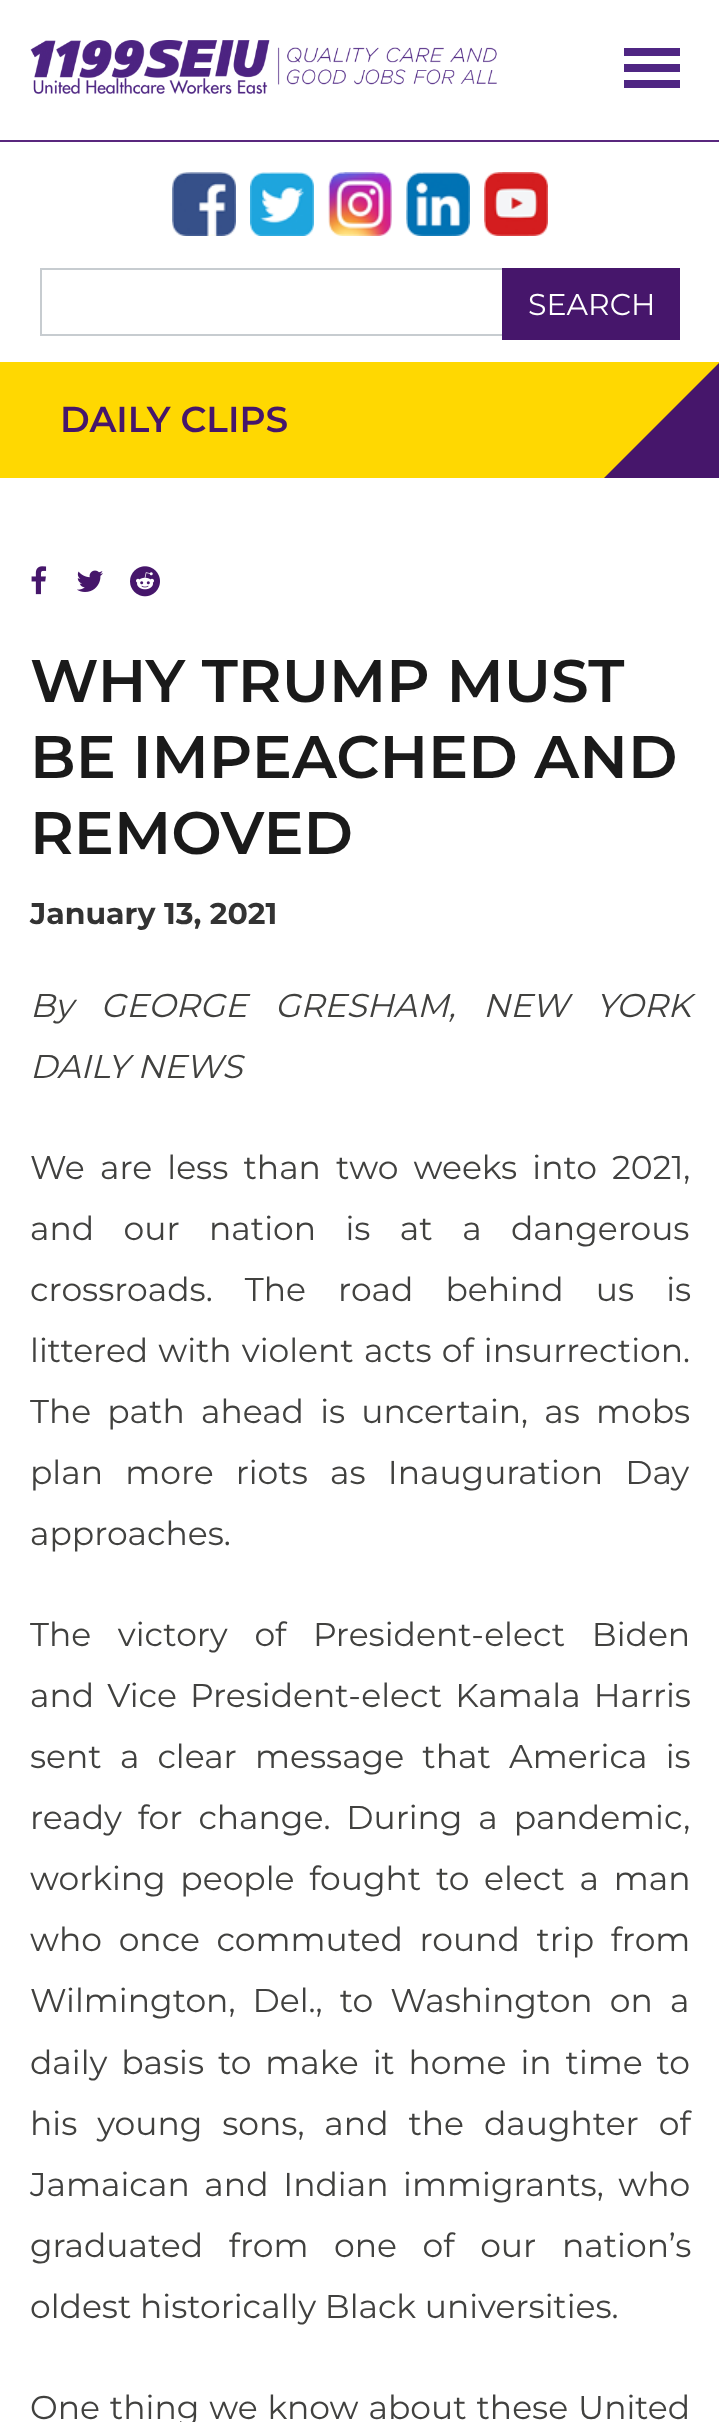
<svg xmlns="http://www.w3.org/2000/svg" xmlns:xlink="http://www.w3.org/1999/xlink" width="719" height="2422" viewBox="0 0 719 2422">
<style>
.cls-1{font:30px Montserrat;fill:#ffffff}
.cls-2{font:600 36px Montserrat;fill:#46166b}
.cls-3{font:600 60px Montserrat;fill:#1a1a1a}
.cls-4{font:bold 30px Montserrat;fill:#333333}
.cls-5{font:italic 33px Montserrat;fill:#41413f}
.cls-6{font:33px Montserrat;fill:#41413f}
</style>
<rect width="100%" height="100%" fill="#ffffff"/>
<image xlink:href="image0.png" x="30" y="40" width="467" height="54"/>
<rect fill="#4f2683" x="624" y="48" width="56" height="8"/>
<rect fill="#4f2683" x="624" y="64" width="56" height="8"/>
<rect fill="#4f2683" x="624" y="80" width="56" height="8"/>
<rect fill="#59277e" x="0" y="140" width="719" height="2"/>
<image xlink:href="image1.png" x="172" y="172" width="64" height="64"/>
<image xlink:href="image2.png" x="250" y="172" width="64" height="64"/>
<image xlink:href="image3.png" x="328" y="172" width="64" height="64"/>
<image xlink:href="image4.png" x="406" y="172" width="64" height="64"/>
<image xlink:href="image5.png" x="484" y="172" width="64" height="64"/>
<rect fill="none" stroke="#c7ccd0" stroke-width="2" x="41" y="269" width="462" height="66"/>
<rect fill="#46166b" x="502" y="268" width="178" height="72"/>
<rect fill="#ffd801" x="0" y="362" width="719" height="116"/>
<path fill="#46166b" d="M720 362V478H604Z"/>
<image xlink:href="image6.png" x="31" y="566" width="16" height="29"/>
<image xlink:href="image7.png" x="77" y="570" width="26" height="22"/>
<image xlink:href="image8.png" x="130" y="566" width="30" height="31"/>
<text class="cls-1" x="528" y="315">SEARCH</text>
<text class="cls-2" x="60" y="432">DAILY CLIPS</text>
<text class="cls-3"><tspan x="30" y="702">WHY TRUMP MUST</tspan><tspan x="30" y="778">BE IMPEACHED AND</tspan><tspan x="30" y="854">REMOVED</tspan></text>
<text class="cls-4" x="30" y="924">January 13, 2021</text>
<text class="cls-5"><tspan x="30" y="1017" word-spacing="19">By GEORGE GRESHAM, NEW YORK</tspan><tspan x="30" y="1078">DAILY NEWS</tspan></text>
<text class="cls-6"><tspan x="30" y="1179" word-spacing="6.5">We are less than two weeks into 2021,</tspan><tspan x="30" y="1240" word-spacing="20.75">and our nation is at a dangerous</tspan><tspan x="30" y="1301" word-spacing="23.5">crossroads. The road behind us is</tspan><tspan x="30" y="1362" word-spacing="1.5">littered with violent acts of insurrection.</tspan><tspan x="30" y="1423" word-spacing="7.5">The path ahead is uncertain, as mobs</tspan><tspan x="30" y="1484" word-spacing="13.5">plan more riots as Inauguration Day</tspan><tspan x="30" y="1545">approaches.</tspan></text>
<text class="cls-6"><tspan x="30" y="1646" word-spacing="18">The victory of President-elect Biden</tspan><tspan x="30" y="1707" word-spacing="4.5">and Vice President-elect Kamala Harris</tspan><tspan x="30" y="1768" word-spacing="9.5">sent a clear message that America is</tspan><tspan x="30" y="1829" word-spacing="7.25">ready for change. During a pandemic,</tspan><tspan x="30" y="1890" word-spacing="6">working people fought to elect a man</tspan><tspan x="30" y="1951" word-spacing="8">who once commuted round trip from</tspan><tspan x="30" y="2012" word-spacing="8.5">Wilmington, Del., to Washington on a</tspan><tspan x="30" y="2074" word-spacing="5.25">daily basis to make it home in time to</tspan><tspan x="30" y="2135" word-spacing="11.25">his young sons, and the daughter of</tspan><tspan x="30" y="2196" word-spacing="6">Jamaican and Indian immigrants, who</tspan><tspan x="30" y="2257" word-spacing="17">graduated from one of our nation’s</tspan><tspan x="30" y="2318">oldest historically Black universities.</tspan></text>
<text class="cls-6" x="30" y="2419" word-spacing="1.25">One thing we know about these United</text>
</svg>
